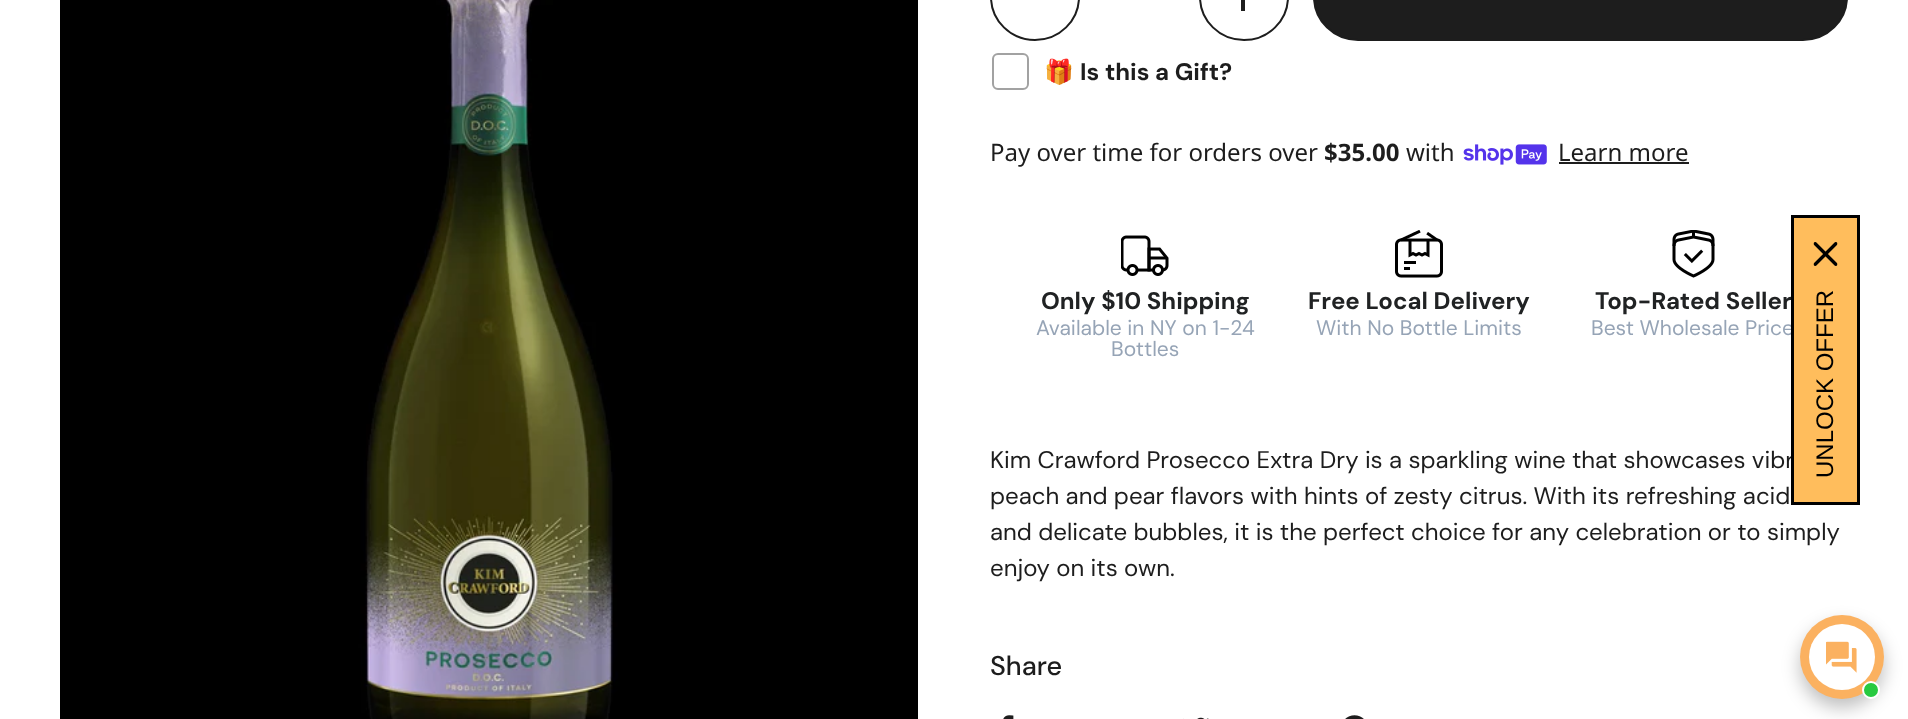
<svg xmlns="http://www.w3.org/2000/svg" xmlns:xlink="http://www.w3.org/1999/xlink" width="1908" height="719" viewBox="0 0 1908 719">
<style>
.cls-1{font:bold 24px Noto Color Emoji;fill:#1d1d1d}
.cls-2{font:bold 24px DM Sans;fill:#1d1d1d}
.cls-3{font:24px Noto Sans;fill:#1d1d1d}
.cls-4{font:bold 24px Noto Sans;fill:#1d1d1d}
.cls-5{font:bold 24px DM Sans;fill:#202223}
.cls-6{font:21px 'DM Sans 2';fill:#96a4b6}
.cls-7{font:24px DM Sans;fill:#1d1d1d}
.cls-8{font:500 27px DM Sans;fill:#1d1d1d}
.cls-9{font:24px Liberation Sans;fill:#000000}
</style>
<rect width="100%" height="100%" fill="#ffffff"/>
<image xlink:href="image0.png" x="60" y="0" width="858" height="719"/>
<rect fill="none" stroke="#1d1d1d" stroke-width="2" x="991" y="-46" width="88" height="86" rx="44"/>
<rect fill="none" stroke="#1d1d1d" stroke-width="2" x="1200" y="-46" width="88" height="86" rx="44"/>
<rect fill="#1d1d1d" x="1241" y="0" width="4" height="11"/>
<rect fill="#1d1d1d" stroke="#1d1d1d" stroke-width="2" x="1314" y="-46" width="533" height="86" rx="44"/>
<rect fill="none" stroke="#a2a2a2" stroke-width="2" x="993" y="54" width="35" height="35" rx="5"/>
<image xlink:href="image1.png" x="1463" y="144" width="84" height="21"/>
<rect fill="#1d1d1d" x="1559" y="162" width="130" height="2"/>
<image xlink:href="image2.png" x="1121" y="235" width="48" height="41"/>
<image xlink:href="image3.png" x="1395" y="230" width="48" height="48"/>
<image xlink:href="image4.png" x="1672" y="230" width="43" height="48"/>
<image xlink:href="image5.png" x="1003" y="715" width="11" height="4"/>
<image xlink:href="image6.png" x="1183" y="717" width="26" height="2"/>
<image xlink:href="image7.png" x="1345" y="715" width="19" height="4"/>
<rect fill="#ffbd5c" x="1794" y="218" width="63" height="284"/>
<rect fill="#000000" fill-opacity="0.25" filter="blur(9px)" x="1800" y="624" width="84" height="84" rx="42"/>
<circle fill="#fbb160" cx="1842" cy="657" r="42"/>
<circle fill="#ffffff" cx="1842" cy="657" r="33"/>
<image xlink:href="image9.png" x="1826" y="641" width="31" height="32"/>
<circle fill="#27ca40" stroke="#ffffff" stroke-width="2" cx="1871" cy="690" r="8"/>
<text class="cls-1" x="1044" y="80">🎁</text>
<text class="cls-2" x="1080" y="80">Is this a Gift?</text>
<text class="cls-3" x="990" y="161">Pay over time for orders over</text>
<text class="cls-4" x="1324" y="161">$35.00</text>
<text class="cls-3" x="1406" y="161">with</text>
<text class="cls-3" x="1558" y="161">Learn more</text>
<text class="cls-5" x="1041" y="309">Only $10 Shipping</text>
<text class="cls-6" x="1036" y="335">Available in NY on 1-24</text>
<text class="cls-6" x="1111" y="356">Bottles</text>
<text class="cls-5" x="1308" y="309">Free Local Delivery</text>
<text class="cls-6" x="1316" y="335">With No Bottle Limits</text>
<text class="cls-5" x="1595" y="309">Top-Rated Seller</text>
<text class="cls-6" x="1591" y="335">Best Wholesale Price</text>
<text class="cls-7"><tspan x="990" y="468">Kim Crawford Prosecco Extra Dry is a sparkling wine that showcases vibr</tspan><tspan x="990" y="504">peach and pear flavors with hints of zesty citrus. With its refreshing acid</tspan><tspan x="990" y="540">and delicate bubbles, it is the perfect choice for any celebration or to simply</tspan><tspan x="990" y="576">enjoy on its own.</tspan></text>
<text class="cls-8" x="990" y="675">Share</text>
<path fill="none" stroke="#000000" stroke-width="3" d="M1792.5 503.5V216.5H1858.5V503.5Z"/>
<image xlink:href="image8.png" x="1813" y="242" width="25" height="24"/>
<text class="cls-9" x="1833" y="478" transform="rotate(-90 1833 478)">UNLOCK OFFER</text>
</svg>
